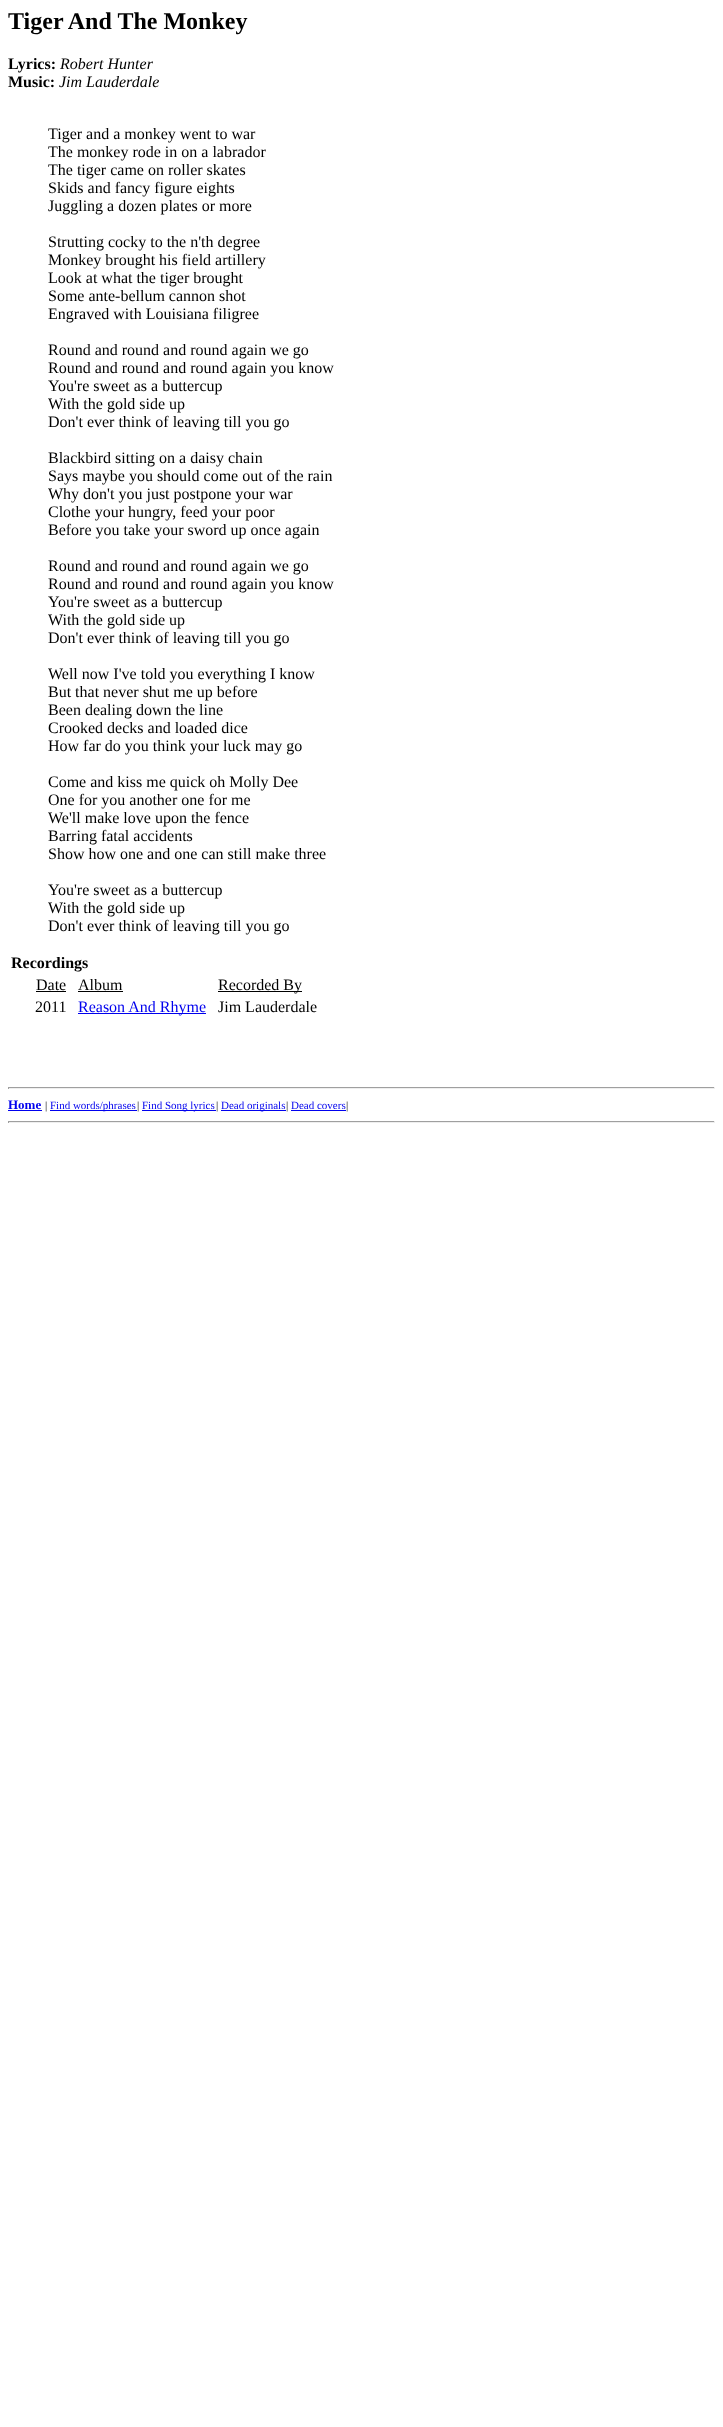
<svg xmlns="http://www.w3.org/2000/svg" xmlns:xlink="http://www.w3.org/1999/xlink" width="723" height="2427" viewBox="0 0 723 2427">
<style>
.cls-1{font:bold 24px Liberation Serif;fill:#000000}
.cls-2{font:bold 16px Liberation Serif;fill:#000000}
.cls-3{font:italic 16px Liberation Serif;fill:#000000}
.cls-4{font:16px Liberation Serif;fill:#000000}
.cls-5{font:16px Liberation Serif;fill:#0000ee}
.cls-6{font:bold 13px Liberation Serif;fill:#0000ee}
.cls-7{font:11px Liberation Serif;fill:#000000}
.cls-8{font:11px Liberation Serif;fill:#0000ee}
</style>
<rect width="100%" height="100%" fill="#ffffff"/>
<rect fill="#000000" x="36" y="991" width="30" height="1"/>
<rect fill="#000000" x="78" y="991" width="45" height="1"/>
<rect fill="#000000" x="218" y="991" width="84" height="1"/>
<rect fill="#0000ee" x="78" y="1013" width="128" height="1"/>
<rect fill="#9f9f9f" x="8" y="1087" width="707" height="1"/>
<rect fill="#eeeeee" x="714" y="1087" width="1" height="2"/>
<rect fill="#eeeeee" x="8" y="1088" width="707" height="1"/>
<rect fill="#9f9f9f" x="8" y="1087" width="1" height="2"/>
<rect fill="#0000ee" x="8" y="1110" width="34" height="1"/>
<rect fill="#0000ee" x="50" y="1110" width="87" height="1"/>
<rect fill="#0000ee" x="142" y="1110" width="74" height="1"/>
<rect fill="#0000ee" x="221" y="1110" width="65" height="1"/>
<rect fill="#0000ee" x="291" y="1110" width="55" height="1"/>
<rect fill="#9f9f9f" x="8" y="1121" width="707" height="1"/>
<rect fill="#eeeeee" x="714" y="1121" width="1" height="2"/>
<rect fill="#eeeeee" x="8" y="1122" width="707" height="1"/>
<rect fill="#9f9f9f" x="8" y="1121" width="1" height="2"/>
<text class="cls-1" x="8" y="29">Tiger And The Monkey</text>
<text class="cls-2" x="8" y="69">Lyrics:</text>
<text class="cls-3" x="60" y="69">Robert Hunter</text>
<text class="cls-2" x="8" y="87">Music:</text>
<text class="cls-3" x="59" y="87">Jim Lauderdale</text>
<text class="cls-4"><tspan x="48" y="139">Tiger and a monkey went to war</tspan><tspan x="48" y="157">The monkey rode in on a labrador</tspan><tspan x="48" y="175">The tiger came on roller skates</tspan><tspan x="48" y="193">Skids and fancy figure eights</tspan><tspan x="48" y="211">Juggling a dozen plates or more</tspan></text>
<text class="cls-4"><tspan x="48" y="247">Strutting cocky to the n'th degree</tspan><tspan x="48" y="265">Monkey brought his field artillery</tspan><tspan x="48" y="283">Look at what the tiger brought</tspan><tspan x="48" y="301">Some ante-bellum cannon shot</tspan><tspan x="48" y="319">Engraved with Louisiana filigree</tspan></text>
<text class="cls-4"><tspan x="48" y="355">Round and round and round again we go</tspan><tspan x="48" y="373">Round and round and round again you know</tspan><tspan x="48" y="391">You're sweet as a buttercup</tspan><tspan x="48" y="409">With the gold side up</tspan><tspan x="48" y="427">Don't ever think of leaving till you go</tspan></text>
<text class="cls-4"><tspan x="48" y="463">Blackbird sitting on a daisy chain</tspan><tspan x="48" y="481">Says maybe you should come out of the rain</tspan><tspan x="48" y="499">Why don't you just postpone your war</tspan><tspan x="48" y="517">Clothe your hungry, feed your poor</tspan><tspan x="48" y="535">Before you take your sword up once again</tspan></text>
<text class="cls-4"><tspan x="48" y="571">Round and round and round again we go</tspan><tspan x="48" y="589">Round and round and round again you know</tspan><tspan x="48" y="607">You're sweet as a buttercup</tspan><tspan x="48" y="625">With the gold side up</tspan><tspan x="48" y="643">Don't ever think of leaving till you go</tspan></text>
<text class="cls-4"><tspan x="48" y="679">Well now I've told you everything I know</tspan><tspan x="48" y="697">But that never shut me up before</tspan><tspan x="48" y="715">Been dealing down the line</tspan><tspan x="48" y="733">Crooked decks and loaded dice</tspan><tspan x="48" y="751">How far do you think your luck may go</tspan></text>
<text class="cls-4"><tspan x="48" y="787">Come and kiss me quick oh Molly Dee</tspan><tspan x="48" y="805">One for you another one for me</tspan><tspan x="48" y="823">We'll make love upon the fence</tspan><tspan x="48" y="841">Barring fatal accidents</tspan><tspan x="48" y="859">Show how one and one can still make three</tspan></text>
<text class="cls-4"><tspan x="48" y="895">You're sweet as a buttercup</tspan><tspan x="48" y="913">With the gold side up</tspan><tspan x="48" y="931">Don't ever think of leaving till you go</tspan></text>
<text class="cls-2" x="11" y="968">Recordings</text>
<text class="cls-4" x="36" y="990">Date</text>
<text class="cls-4" x="78" y="990">Album</text>
<text class="cls-4" x="218" y="990">Recorded By</text>
<text class="cls-4" x="35" y="1012">2011</text>
<text class="cls-5" x="78" y="1012">Reason And Rhyme</text>
<text class="cls-4" x="218" y="1012">Jim Lauderdale</text>
<text class="cls-6" x="8" y="1109">Home</text>
<text class="cls-7" x="45" y="1109">|</text>
<text class="cls-8" x="50" y="1109">Find words/phrases</text>
<text class="cls-7" x="137" y="1109">|</text>
<text class="cls-8" x="142" y="1109">Find Song lyrics</text>
<text class="cls-7" x="216" y="1109">|</text>
<text class="cls-8" x="221" y="1109">Dead originals</text>
<text class="cls-7" x="286" y="1109">|</text>
<text class="cls-8" x="291" y="1109">Dead covers</text>
<text class="cls-7" x="346" y="1109">|</text>
</svg>
